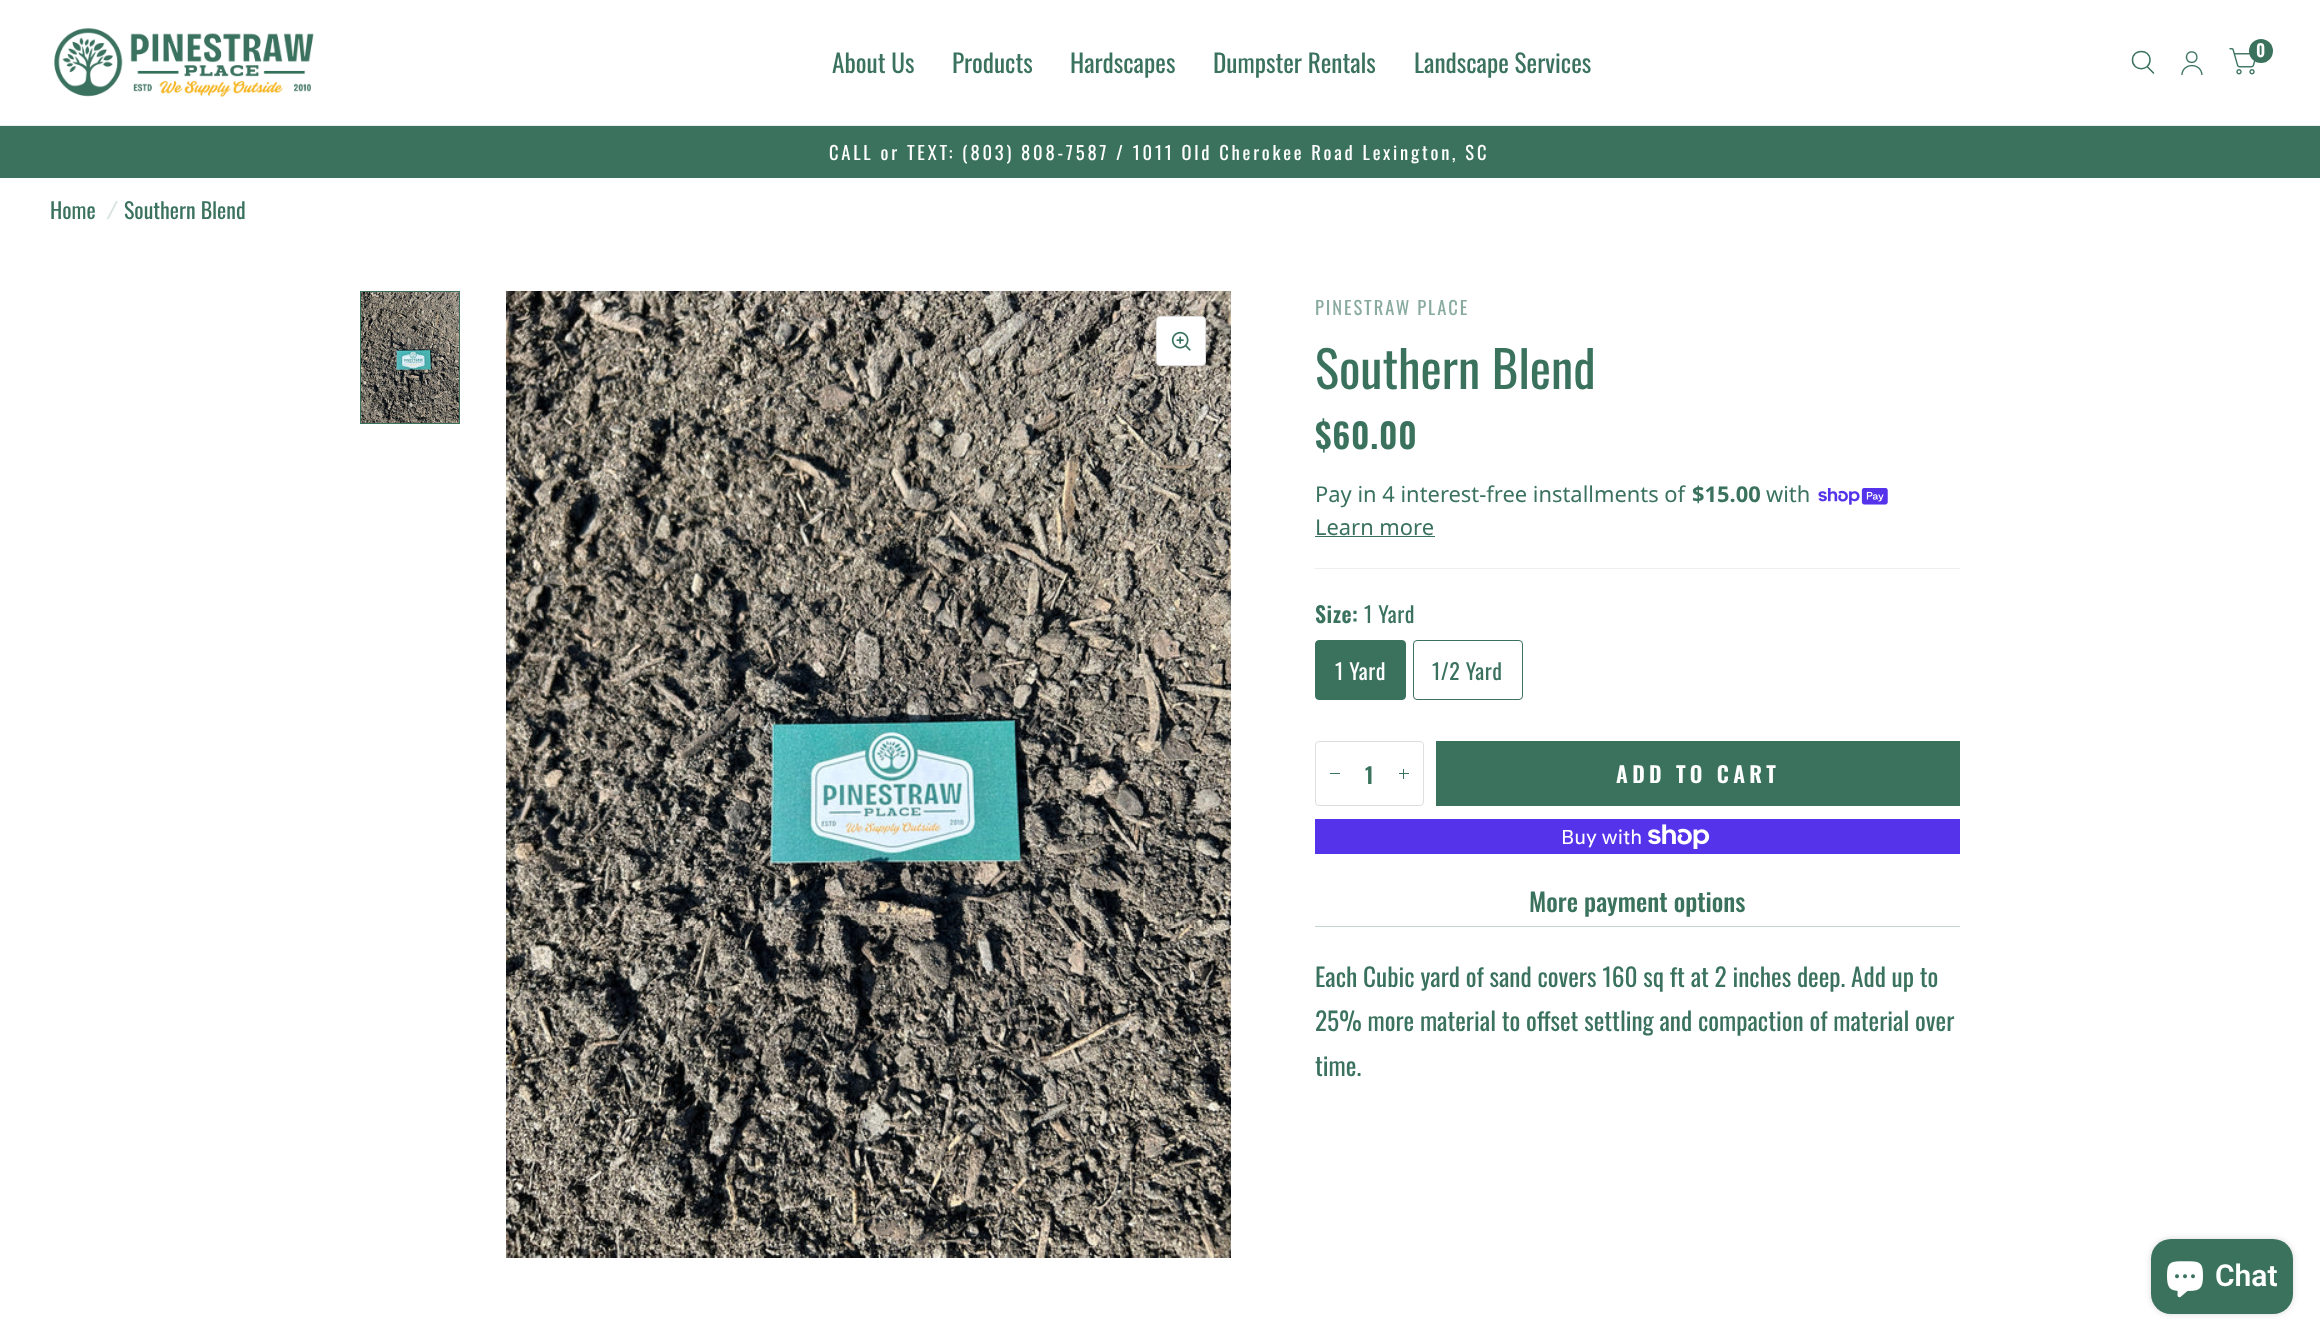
<svg xmlns="http://www.w3.org/2000/svg" xmlns:xlink="http://www.w3.org/1999/xlink" width="2320" height="1340" viewBox="0 0 2320 1340">
<style>
.cls-1{font:600 17px Oswald;fill:#ffffff}
.cls-2{font:25.3px Oswald;fill:#3a725e}
.cls-3{font:18.55px Oswald;letter-spacing:2.78px;fill:#ffffff}
.cls-4{font:21.9px Oswald;fill:#3a725e}
.cls-5{font:italic 21.9px Oswald;fill:#d8e3df}
.cls-6{font:18.55px Oswald;letter-spacing:1.9px;fill:#89aa9e}
.cls-7{font:50.5px Oswald;fill:#3a725e}
.cls-8{font:600 34px Oswald;letter-spacing:0.75px;fill:#3a725e}
.cls-9{font:21.9px Noto Sans;fill:#3a725e}
.cls-10{font:bold 21.9px Noto Sans;fill:#3a725e}
.cls-11{font:600 21.9px Oswald;letter-spacing:0.5px;fill:#3a725e}
.cls-12{font:21.9px Oswald;letter-spacing:0.5px;fill:#3a725e}
.cls-13{font:21.9px Oswald;letter-spacing:0.5px;fill:#ffffff}
.cls-14{font:600 21.9px Oswald;fill:#3a725e}
.cls-15{font:600 21.9px Oswald;letter-spacing:4.4px;fill:#ffffff}
.cls-16{font:20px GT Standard;fill:#ffffff}
.cls-17{font:500 25.3px Oswald;fill:#3a725e}
.cls-18{font:600 30px Roboto;fill:#ffffff}
</style>
<rect width="100%" height="100%" fill="#ffffff"/>
<rect fill="#eeeeee" x="0" y="125" width="2320" height="1"/>
<image xlink:href="image0.png" x="54" y="28" width="260" height="69"/>
<path fill="none" stroke="#3a725e" stroke-width="1.5" stroke-linecap="round" stroke-linejoin="round" d="M2147.5 67L2153.5 73M2150 60C2150 71.5 2132.5 71.5 2132.5 60C2132.5 48.5 2150 48.5 2150 60Z"/>
<image xlink:href="image1.png" x="2181" y="51" width="22" height="25"/>
<image xlink:href="image2.png" x="2229" y="48" width="27" height="27"/>
<circle fill="#3a725e" cx="2261" cy="51" r="12"/>
<rect fill="#3a725e" x="0" y="126" width="2320" height="52"/>
<image xlink:href="image3.png" x="361" y="292" width="98" height="131"/>
<rect fill="none" stroke="#3a725e" x="360.5" y="291.5" width="99" height="132"/>
<image xlink:href="image4.png" x="506" y="291" width="725" height="967"/>
<rect fill="#ffffff" stroke="#dedede" x="1156.5" y="316.5" width="49" height="49" rx="3.5"/>
<image xlink:href="image5.png" x="1171" y="331" width="20" height="20"/>
<rect fill="#eeeeee" x="1315" y="568" width="645" height="1"/>
<image xlink:href="image6.png" x="1818" y="488" width="70" height="17"/>
<rect fill="#3a725e" x="1315" y="536" width="120" height="1"/>
<rect fill="#3a725e" stroke="#3a725e" x="1315.5" y="640.5" width="90" height="59" rx="3.5"/>
<rect fill="none" stroke="#3a725e" x="1413.5" y="640.5" width="109" height="59" rx="3.5"/>
<rect fill="none" stroke="#dedede" x="1315.5" y="741.5" width="108" height="64" rx="3.5"/>
<rect fill="#3a725e" x="1330" y="773" width="10" height="1"/>
<rect fill="#3a725e" x="1403" y="769" width="1" height="10"/>
<rect fill="#3a725e" x="1399" y="773" width="10" height="1"/>
<rect fill="#3a725e" x="1436" y="741" width="524" height="65"/>
<rect fill="#5433eb" x="1315" y="819" width="645" height="35"/>
<image xlink:href="image7.png" x="1648" y="824" width="62" height="25"/>
<rect fill="#c4d5cf" x="1315" y="926" width="645" height="1"/>
<rect fill="#000000" fill-opacity="0.15" filter="blur(3px)" x="2151" y="1239" width="142" height="75" rx="20"/>
<rect fill="#3a725e" x="2151" y="1239" width="142" height="75" rx="20"/>
<image xlink:href="image8.png" x="2167" y="1261" width="36" height="37"/>
<text class="cls-1" x="2256" y="57">0</text>
<text class="cls-2" x="832" y="73">About Us</text>
<text class="cls-2" x="952" y="73">Products</text>
<text class="cls-2" x="1070" y="73">Hardscapes</text>
<text class="cls-2" x="1213" y="73">Dumpster Rentals</text>
<text class="cls-2" x="1414" y="73">Landscape Services</text>
<text class="cls-3" x="829" y="160">CALL or TEXT: (803) 808-7587 / 1011 Old Cherokee Road Lexington, SC</text>
<text class="cls-4" x="50" y="219">Home</text>
<text class="cls-5" x="106" y="219">/</text>
<text class="cls-4" x="124" y="219">Southern Blend</text>
<text class="cls-6" x="1315" y="315">PINESTRAW PLACE</text>
<text class="cls-7" x="1315" y="389">Southern Blend</text>
<text class="cls-8" x="1315" y="449">$60.00</text>
<text class="cls-9" x="1315" y="502">Pay in 4 interest-free installments of</text>
<text class="cls-10" x="1692" y="502">$15.00</text>
<text class="cls-9" x="1766" y="502">with</text>
<text class="cls-9" x="1315" y="535">Learn more</text>
<text class="cls-11" x="1315" y="623">Size:</text>
<text class="cls-12" x="1364" y="623">1 Yard</text>
<text class="cls-13" x="1335" y="680">1 Yard</text>
<text class="cls-12" x="1432" y="680">1/2 Yard</text>
<text class="cls-14" x="1365" y="784">1</text>
<text class="cls-15" x="1616" y="783">ADD TO CART</text>
<text class="cls-16" x="1561" y="844">Buy with</text>
<text class="cls-17" x="1529" y="912">More payment options</text>
<text class="cls-2"><tspan x="1315" y="987">Each Cubic yard of sand covers 160 sq ft at 2 inches deep. Add up to</tspan><tspan x="1315" y="1031">25% more material to offset settling and compaction of material over</tspan><tspan x="1315" y="1076">time.</tspan></text>
<text class="cls-18" x="2215" y="1286">Chat</text>
</svg>
